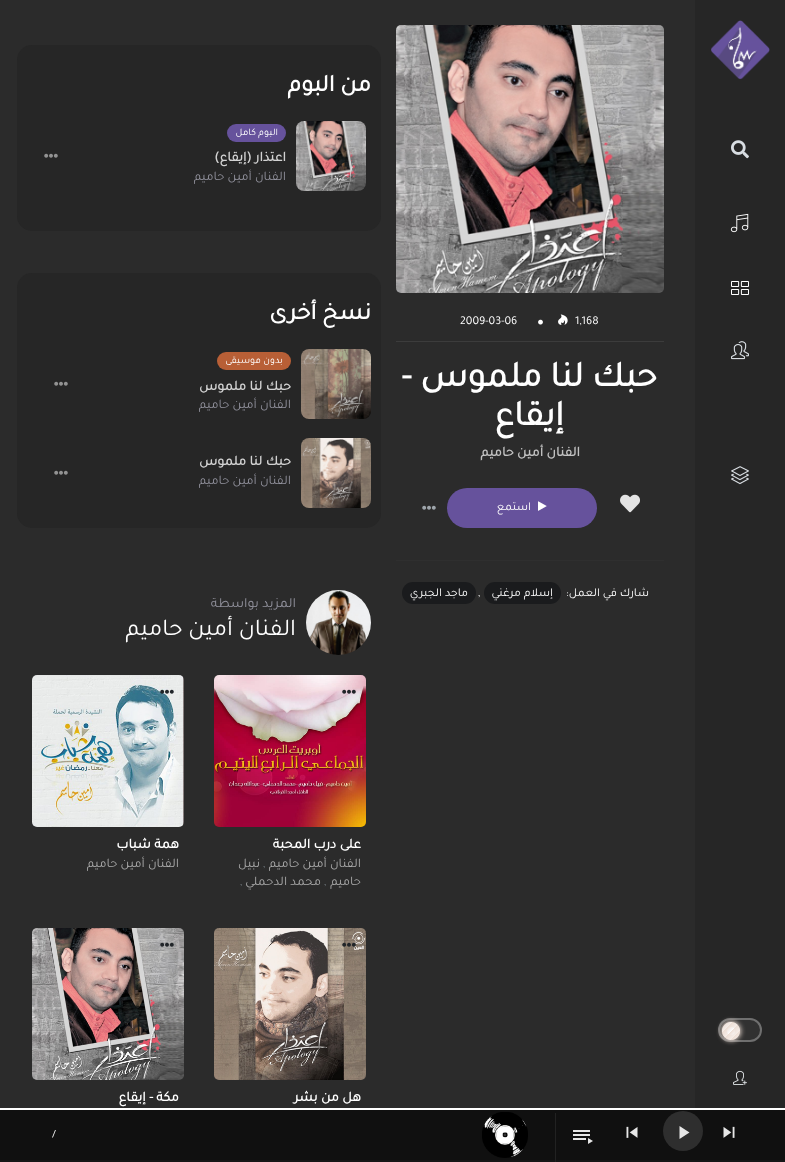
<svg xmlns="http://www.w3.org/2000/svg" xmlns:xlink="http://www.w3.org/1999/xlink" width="785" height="1162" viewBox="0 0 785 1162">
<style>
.cls-1{font:12px Tajawal;fill:#ffffff}
.cls-2{font:bold 36px Tajawal;direction:rtl;fill:#ffffff}
.cls-3{font:bold 14px Tajawal;direction:rtl;fill:#c1c1c1}
.cls-4{font:12px Tajawal;direction:rtl;fill:#ffffff}
.cls-5{font:bold 24px Tajawal;direction:rtl;fill:#ffffff}
.cls-6{font:10px Tajawal;direction:rtl;fill:#ffffff}
.cls-7{font:bold 14px Tajawal;direction:rtl;fill:#d2d2d2}
.cls-8{font:13px Tajawal;direction:rtl;fill:#92929d}
.cls-9{font:14px Tajawal;direction:rtl;fill:#92929d}
.cls-10{font:24px Tajawal;direction:rtl;fill:#ffffff}
.cls-11{font:bold 14px Tajawal;direction:rtl;fill:#ffffff}
.cls-12{font:13px Tajawal;direction:rtl;fill:#aaaaaa}
.cls-13{font:12px Tajawal;fill:#788188}
.cls-14{font:10px Roboto;fill:#ffffff}
</style>
<rect width="100%" height="100%" fill="#2b2b2b"/>
<rect fill="#161717" x="0" y="1160" width="695" height="2"/>
<rect fill="#262626" x="695" y="0" width="90" height="1108"/>
<image xlink:href="image0.png" x="711" y="20" width="59" height="60"/>
<rect fill="#151617" x="695" y="1160" width="90" height="2"/>
<image xlink:href="image1.png" x="731" y="140" width="18" height="19"/>
<image xlink:href="image2.png" x="730" y="213" width="19" height="20"/>
<image xlink:href="image3.png" x="731" y="281" width="18" height="14"/>
<image xlink:href="image4.png" x="731" y="341" width="18" height="19"/>
<image xlink:href="image5.png" x="731" y="466" width="18" height="19"/>
<rect fill="#313131" x="718" y="1018" width="44" height="24" rx="12"/>
<rect fill="none" stroke="#cccccc" stroke-opacity="0.4" stroke-width="2" x="719" y="1019" width="42" height="22" rx="11"/>
<rect fill="#edddd4" filter="blur(2.5px)" x="721" y="1021" width="20" height="20" rx="10"/>
<image xlink:href="image6.png" x="722" y="1022" width="18" height="18"/>
<circle fill="none" stroke="#edddd4" stroke-opacity="0.5" stroke-width="5" cx="731" cy="1031" r="6.5"/>
<image xlink:href="image7.png" x="733" y="1070" width="14" height="15"/>
<image xlink:href="image8.png" x="396" y="25" width="268" height="268"/>
<rect fill="#3c3c3c" x="396" y="341" width="268" height="1"/>
<image xlink:href="image9.png" x="558" y="314" width="10" height="11"/>
<image xlink:href="image10.png" x="538" y="319" width="5" height="6"/>
<image xlink:href="image11.png" x="620" y="494" width="20" height="19"/>
<rect fill="#66529c" x="447" y="488" width="150" height="40" rx="20"/>
<image xlink:href="image12.png" x="538" y="501" width="9" height="10"/>
<image xlink:href="image13.png" x="422" y="505" width="14" height="5"/>
<rect fill="#2f2f2f" x="396" y="560" width="268" height="1"/>
<rect fill="#1a1b1d" x="484" y="582" width="77" height="22" rx="11"/>
<rect fill="#1a1b1d" x="402" y="582" width="74" height="22" rx="11"/>
<rect fill="#262626" x="17" y="45" width="364" height="186" rx="15"/>
<rect fill="#1f1f1f" x="296" y="121" width="70" height="70" rx="8"/>
<image xlink:href="image14.png" x="296" y="121" width="70" height="70"/>
<rect fill="#66529c" x="227" y="124" width="59" height="18" rx="9"/>
<image xlink:href="image15.png" x="44" y="153" width="14" height="5"/>
<rect fill="#262626" x="17" y="273" width="364" height="255" rx="15"/>
<rect fill="#1f1f1f" x="301" y="349" width="70" height="70" rx="8"/>
<image xlink:href="image16.png" x="301" y="349" width="70" height="70"/>
<rect fill="#b85f36" x="217" y="352" width="74" height="18" rx="9"/>
<image xlink:href="image15.png" x="54" y="381" width="14" height="5"/>
<rect fill="#1f1f1f" x="301" y="438" width="70" height="70" rx="8"/>
<image xlink:href="image17.png" x="301" y="438" width="70" height="70"/>
<image xlink:href="image15.png" x="54" y="470" width="14" height="5"/>
<image xlink:href="image18.png" x="306" y="590" width="65" height="65"/>
<image xlink:href="image19.png" x="214" y="675" width="152" height="152"/>
<image xlink:href="image20.png" x="342" y="689" width="14" height="5"/>
<image xlink:href="image21.png" x="32" y="675" width="152" height="152"/>
<image xlink:href="image22.png" x="160" y="689" width="14" height="5"/>
<image xlink:href="image23.png" x="214" y="928" width="152" height="152"/>
<image xlink:href="image24.png" x="342" y="942" width="14" height="5"/>
<image xlink:href="image25.png" x="32" y="928" width="152" height="152"/>
<image xlink:href="image26.png" x="160" y="942" width="14" height="5"/>
<rect fill="#101010" x="0" y="1110" width="785" height="50"/>
<rect fill="#ffffff" x="0" y="1108" width="785" height="2"/>
<image xlink:href="image27.png" x="723" y="1126" width="12" height="12"/>
<circle fill="#2e2e2e" cx="683" cy="1131" r="20"/>
<path fill="#e7e7e7" d="M679.5 1126V1139L689.5 1132.5Z"/>
<image xlink:href="image28.png" x="626" y="1126" width="12" height="12"/>
<rect fill="#222222" x="555" y="1113" width="1" height="49"/>
<image xlink:href="image29.png" x="573" y="1130" width="20" height="14"/>
<image xlink:href="image30.png" x="482" y="1112" width="46" height="46"/>
<text class="cls-1" x="575" y="324">1,168</text>
<text class="cls-1" x="460" y="324">2009-03-06</text>
<text class="cls-2" x="657" y="386">حبك لنا ملموس -</text>
<text class="cls-2" x="564" y="425">إيقاع</text>
<text class="cls-3" x="580" y="456">الفنان أمين حاميم</text>
<text class="cls-4" x="531" y="510">استمع</text>
<text class="cls-4" x="649" y="596">شارك في العمل:</text>
<text class="cls-4" x="553" y="596">إسلام مرغني</text>
<text class="cls-1" x="478" y="596">,</text>
<text class="cls-4" x="468" y="596">ماجد الجبري</text>
<text class="cls-5" x="371" y="91">من البوم</text>
<text class="cls-6" x="278" y="135">البوم كامل</text>
<text class="cls-7" x="286" y="161">اعتذار (إيقاع)</text>
<text class="cls-8" x="286" y="180">الفنان أمين حاميم</text>
<text class="cls-5" x="371" y="319">نسخ أخرى</text>
<text class="cls-6" x="283" y="363">بدون موسيقى</text>
<text class="cls-7" x="291" y="390">حبك لنا ملموس</text>
<text class="cls-8" x="291" y="408">الفنان أمين حاميم</text>
<text class="cls-7" x="291" y="465">حبك لنا ملموس</text>
<text class="cls-8" x="291" y="484">الفنان أمين حاميم</text>
<text class="cls-9" x="296" y="607">المزيد بواسطة</text>
<text class="cls-10" x="296" y="635">الفنان أمين حاميم</text>
<text class="cls-11" x="361" y="848">على درب المحبة</text>
<text class="cls-12" x="361" y="867">الفنان أمين حاميم</text>
<text class="cls-13" x="263" y="867">,</text>
<text class="cls-12" x="260" y="867">نبيل</text>
<text class="cls-12" x="361" y="885">حاميم</text>
<text class="cls-13" x="324" y="885">,</text>
<text class="cls-12" x="321" y="885">محمد الدحملي</text>
<text class="cls-13" x="240" y="885">,</text>
<text class="cls-11" x="179" y="848">همة شباب</text>
<text class="cls-12" x="179" y="867">الفنان أمين حاميم</text>
<text class="cls-11" x="361" y="1101">هل من بشر</text>
<text class="cls-11" x="179" y="1101">مكة - إيقاع</text>
<text class="cls-14" x="52" y="1137">/</text>
</svg>
